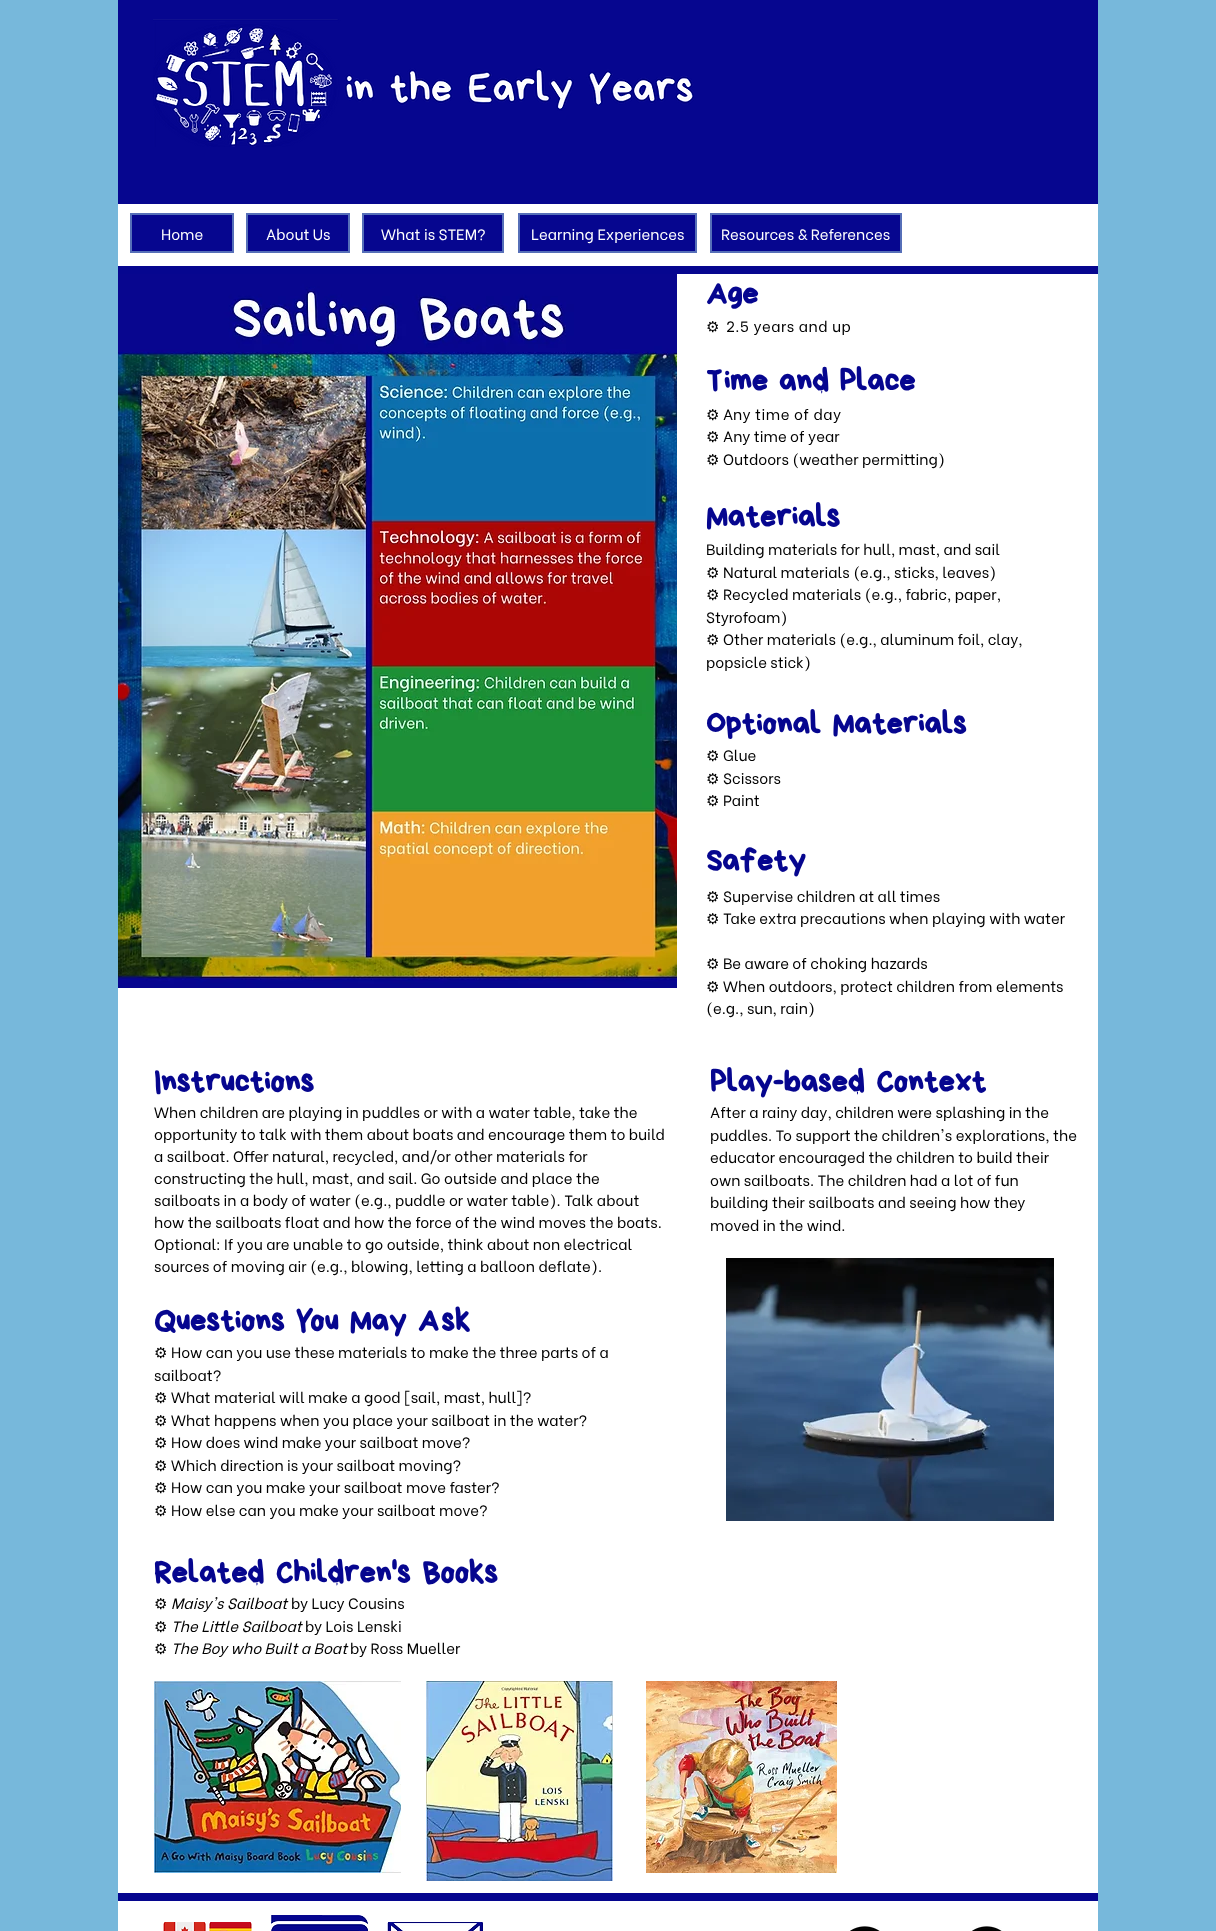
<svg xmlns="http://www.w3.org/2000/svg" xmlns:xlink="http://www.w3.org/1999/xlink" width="1216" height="1931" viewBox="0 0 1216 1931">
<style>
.cls-1{font:15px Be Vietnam;fill:#ffffff}
.cls-2{font:bold 32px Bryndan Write;fill:#06068f}
.cls-3{font:15px DejaVu Sans;fill:#000000}
.cls-4{font:15px Be Vietnam;letter-spacing:0.5px;fill:#000000}
.cls-5{font:15px Be Vietnam;fill:#000000}
.cls-6{font:italic 15px Be Vietnam;fill:#000000}
</style>
<rect width="100%" height="100%" fill="#77b8db"/>
<rect fill="#06068f" x="118" y="0" width="980" height="204"/>
<image xlink:href="image0.png" x="153" y="19" width="541" height="128"/>
<rect fill="#ffffff" x="118" y="204" width="980" height="1727"/>
<rect fill="#06068f" stroke="#566fb8" stroke-width="2" x="131" y="214" width="102" height="38"/>
<rect fill="#06068f" stroke="#566fb8" stroke-width="2" x="247" y="214" width="102" height="38"/>
<rect fill="#06068f" stroke="#566fb8" stroke-width="2" x="363" y="214" width="140" height="38"/>
<rect fill="#06068f" stroke="#566fb8" stroke-width="2" x="519" y="214" width="177" height="38"/>
<rect fill="#06068f" stroke="#566fb8" stroke-width="2" x="711" y="214" width="190" height="38"/>
<rect fill="#06068f" x="118" y="266" width="980" height="8"/>
<image xlink:href="image1.png" x="118" y="274" width="559" height="714"/>
<image xlink:href="image2.png" x="726" y="1258" width="328" height="263"/>
<image xlink:href="image3.png" x="154" y="1681" width="247" height="192"/>
<image xlink:href="image4.png" x="426" y="1681" width="187" height="200"/>
<image xlink:href="image5.png" x="646" y="1681" width="191" height="192"/>
<rect fill="#06068f" x="118" y="1893" width="980" height="8"/>
<image xlink:href="image6.png" x="163" y="1922" width="89" height="9"/>
<image xlink:href="image7.png" x="271" y="1915" width="98" height="16"/>
<image xlink:href="image8.png" x="387" y="1922" width="96" height="9"/>
<image xlink:href="image9.png" x="850" y="1926" width="30" height="5"/>
<image xlink:href="image9.png" x="972" y="1926" width="30" height="5"/>
<text class="cls-1" x="161" y="240">Home</text>
<text class="cls-1" x="266" y="240">About Us</text>
<text class="cls-1" x="381" y="240">What is STEM?</text>
<text class="cls-1" x="531" y="240">Learning Experiences</text>
<text class="cls-1" x="721" y="240">Resources &amp; References</text>
<text class="cls-2" x="706" y="303">Age</text>
<text class="cls-3" x="706" y="332">⚙</text>
<text class="cls-4" x="726" y="332">2.5 years and up</text>
<text class="cls-2" x="706" y="390" word-spacing="-1">Time and Place</text>
<text class="cls-3" x="706" y="420">⚙</text>
<text class="cls-5" x="723" y="420">A</text>
<text class="cls-4" x="733" y="420">ny time of day</text>
<text class="cls-3" x="706" y="442">⚙</text>
<text class="cls-5" x="723" y="442">Any time of year</text>
<text class="cls-3" x="706" y="465">⚙</text>
<text class="cls-5" x="723" y="465">Outdoors (weather permitting)</text>
<text class="cls-2" x="706" y="526">Materials</text>
<text class="cls-5" x="706" y="555">Building materials for hull, mast, and sail</text>
<text class="cls-3" x="706" y="578">⚙</text>
<text class="cls-5" x="723" y="578">Natural materials (e.g., sticks, leaves)</text>
<text class="cls-3" x="706" y="600">⚙</text>
<text class="cls-5" x="723" y="600">Recycled materials (e.g., fabric, paper,</text>
<text class="cls-5" x="706" y="623">Styrofoam)</text>
<text class="cls-3" x="706" y="645">⚙</text>
<text class="cls-5" x="723" y="645">Other materials (e.g., aluminum foil, clay,</text>
<text class="cls-5" x="706" y="668">popsicle stick)</text>
<text class="cls-2" x="706" y="733">Optional Materials</text>
<text class="cls-3" x="706" y="761">⚙</text>
<text class="cls-5" x="723" y="761">Glue</text>
<text class="cls-3" x="706" y="784">⚙</text>
<text class="cls-5" x="723" y="784">Scissors</text>
<text class="cls-3" x="706" y="806">⚙</text>
<text class="cls-5" x="723" y="806">Paint</text>
<text class="cls-2" x="706" y="870">Safety</text>
<text class="cls-3" x="706" y="902">⚙</text>
<text class="cls-5" x="723" y="902">Supervise children at all times</text>
<text class="cls-3" x="706" y="924">⚙</text>
<text class="cls-5" x="723" y="924">Take extra precautions when playing with water</text>
<text class="cls-3" x="706" y="969">⚙</text>
<text class="cls-5" x="723" y="969">Be aware of choking hazards</text>
<text class="cls-3" x="706" y="992">⚙</text>
<text class="cls-5" x="723" y="992">When outdoors, protect children from elements</text>
<text class="cls-5" x="706" y="1014">(e.g., sun, rain)</text>
<text class="cls-2" x="154" y="1091">Instructions</text>
<text class="cls-2" x="710" y="1091">Play-based Context</text>
<text class="cls-5"><tspan x="154" y="1118">When children are playing in puddles or with a water table, take the</tspan><tspan x="154" y="1140">opportunity to talk with them about boats and encourage them to build</tspan><tspan x="154" y="1162">a sailboat. Offer natural, recycled, and/or other materials for</tspan><tspan x="154" y="1184">constructing the hull, mast, and sail. Go outside and place the</tspan><tspan x="154" y="1206">sailboats in a body of water (e.g., puddle or water table). Talk about</tspan><tspan x="154" y="1228">how the sailboats float and how the force of the wind moves the boats.</tspan><tspan x="154" y="1250">Optional: If you are unable to go outside, think about non electrical</tspan><tspan x="154" y="1272">sources of moving air (e.g., blowing, letting a balloon deflate).</tspan></text>
<text class="cls-5"><tspan x="710" y="1118">After a rainy day, children were splashing in the</tspan><tspan x="710" y="1141">puddles. To support the children's explorations, the</tspan><tspan x="710" y="1163">educator encouraged the children to build their</tspan><tspan x="710" y="1186">own sailboats. The children had a lot of fun</tspan><tspan x="710" y="1208">building their sailboats and seeing how they</tspan><tspan x="710" y="1231">moved in the wind.</tspan></text>
<text class="cls-2" x="154" y="1330" word-spacing="-0.5">Questions You May Ask</text>
<text class="cls-3" x="154" y="1358">⚙</text>
<text class="cls-5" x="171" y="1358">How can you use these materials to make the three parts of a</text>
<text class="cls-5" x="154" y="1381">sailboat?</text>
<text class="cls-3" x="154" y="1403">⚙</text>
<text class="cls-5" x="171" y="1403">What material will make a good [sail, mast, hull]?</text>
<text class="cls-3" x="154" y="1426">⚙</text>
<text class="cls-5" x="171" y="1426">What happens when you place your sailboat in the water?</text>
<text class="cls-3" x="154" y="1448">⚙</text>
<text class="cls-5" x="171" y="1448">How does wind make your sailboat move?</text>
<text class="cls-3" x="154" y="1471">⚙</text>
<text class="cls-5" x="171" y="1471">Which direction is your sailboat moving?</text>
<text class="cls-3" x="154" y="1493">⚙</text>
<text class="cls-5" x="171" y="1493">How can you make your sailboat move faster?</text>
<text class="cls-3" x="154" y="1516">⚙</text>
<text class="cls-5" x="171" y="1516">How else can you make your sailboat move?</text>
<text class="cls-2" x="154" y="1582">Related Children's Books</text>
<text class="cls-3" x="154" y="1609">⚙</text>
<text class="cls-6" x="171" y="1609">Maisy's Sailboat</text>
<text class="cls-5" x="291" y="1609">by Lucy Cousins</text>
<text class="cls-3" x="154" y="1632">⚙</text>
<text class="cls-6" x="171" y="1632">The Little Sailboat</text>
<text class="cls-5" x="305" y="1632">by Lois Lenski</text>
<text class="cls-3" x="154" y="1654">⚙</text>
<text class="cls-6" x="171" y="1654">The Boy who Built a Boat</text>
<text class="cls-5" x="350" y="1654">by Ross Mueller</text>
</svg>
